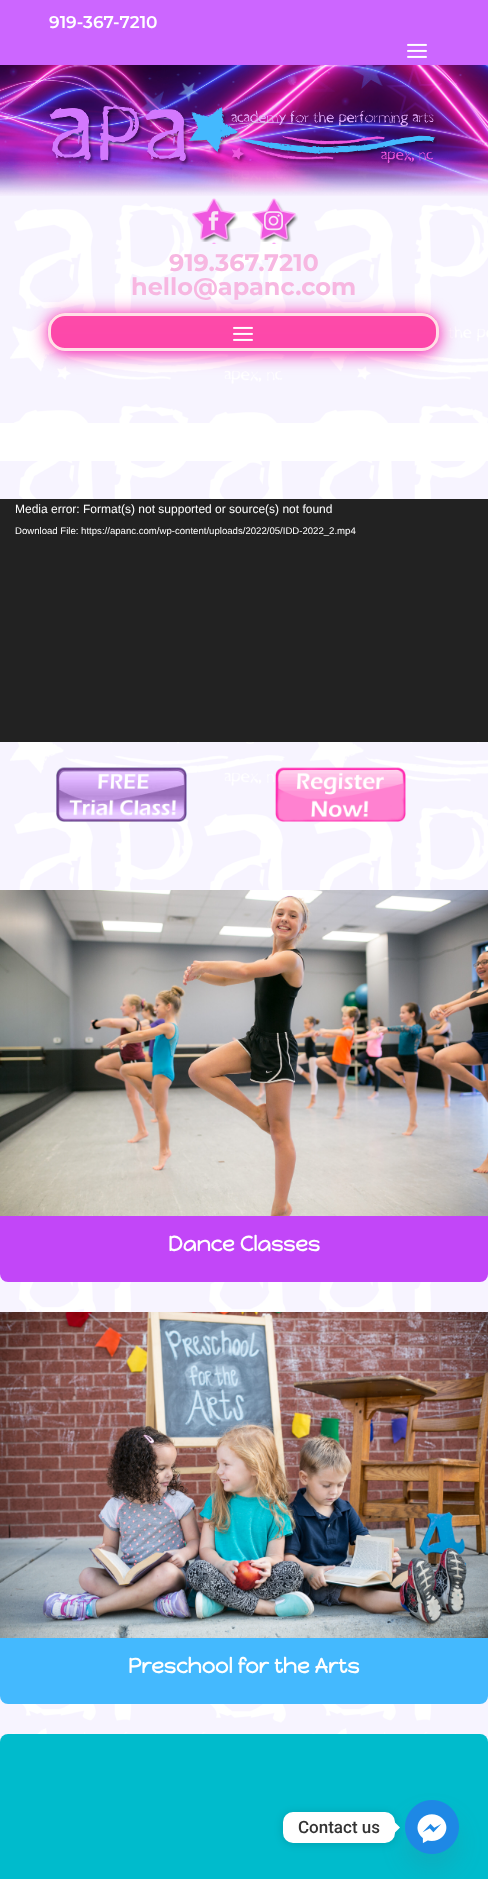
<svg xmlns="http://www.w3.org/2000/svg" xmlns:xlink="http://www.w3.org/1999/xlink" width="488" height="1879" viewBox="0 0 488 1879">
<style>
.cls-1{font:100 17px 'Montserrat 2';fill:#ffffff}
.cls-2{font:100 24px Montserrat;fill:#f7b7e1}
.cls-3{font:12px Liberation Sans;fill:#ffffff}
.cls-4{font:9.6px Liberation Sans;fill:#ffffff}
.cls-5{font:bold 21px Happy Monkey;fill:#ffffff}
.cls-6{font:500 17px Roboto;fill:#333333}
</style>
<rect width="100%" height="100%" fill="#f7f4ff"/>
<image xlink:href="image0.png" x="10" y="65" width="478" height="1677"/>
<image xlink:href="image1.png" x="0" y="65" width="488" height="131"/>
<rect fill="#cc66ff" x="0" y="0" width="488" height="65"/>
<image xlink:href="image2.png" x="407" y="43" width="20" height="15"/>
<image xlink:href="image3.png" x="49" y="105" width="388" height="62"/>
<image xlink:href="image4.png" x="192" y="198" width="46" height="46"/>
<image xlink:href="image5.png" x="208" y="211" width="11" height="20"/>
<image xlink:href="image6.png" x="252" y="198" width="46" height="46"/>
<image xlink:href="image7.png" x="264" y="211" width="19" height="20"/>
<rect fill="#f700a4" filter="blur(9px)" x="48" y="315" width="391" height="38" rx="17"/>
<image xlink:href="image8.png" x="51" y="313" width="385" height="38"/>
<rect fill="none" stroke="#ffe0e7" stroke-width="3" x="49.5" y="314.5" width="388" height="35" rx="15.5"/>
<image xlink:href="image9.png" x="233" y="326" width="20" height="15"/>
<rect fill="#ffffff" x="0" y="423" width="488" height="38"/>
<rect fill="#222222" x="0" y="499" width="488" height="243"/>
<image xlink:href="image10.png" x="56" y="767" width="131" height="55"/>
<image xlink:href="image11.png" x="275" y="767" width="131" height="55"/>
<rect fill="#c246f8" x="0" y="890" width="488" height="392" rx="8"/>
<image xlink:href="image12.png" x="0" y="890" width="488" height="326"/>
<rect fill="#44b9fe" x="0" y="1312" width="488" height="392" rx="8"/>
<image xlink:href="image13.png" x="0" y="1312" width="488" height="326"/>
<rect fill="#00bbcc" x="0" y="1734" width="488" height="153" rx="8"/>
<rect fill="#49687e" fill-opacity="0.16" filter="blur(12px)" x="405" y="1816" width="54" height="54" rx="27"/>
<image xlink:href="image14.png" x="405" y="1800" width="54" height="54"/>
<rect fill="#000000" fill-opacity="0.15" filter="blur(4px)" x="283" y="1813" width="112" height="31" rx="10"/>
<rect fill="#ffffff" x="283" y="1812" width="112" height="31" rx="10"/>
<path fill="#ffffff" d="M395 1832.5V1822.5L400 1827.5Z"/>
<text class="cls-1" x="49" y="28">919-367-7210</text>
<text class="cls-2" x="169" y="271">919.367.7210</text>
<text class="cls-2" x="131" y="295">hello@apanc.com</text>
<text class="cls-3" x="15" y="513">Media error: Format(s) not supported or source(s) not found</text>
<text class="cls-4" x="15" y="534">Download File: https://apanc.com/wp-content/uploads/2022/05/IDD-2022_2.mp4</text>
<text class="cls-5" x="168" y="1251">Dance Classes</text>
<text class="cls-5" x="128" y="1673">Preschool for the Arts</text>
<text class="cls-6" x="298" y="1833">Contact us</text>
</svg>
